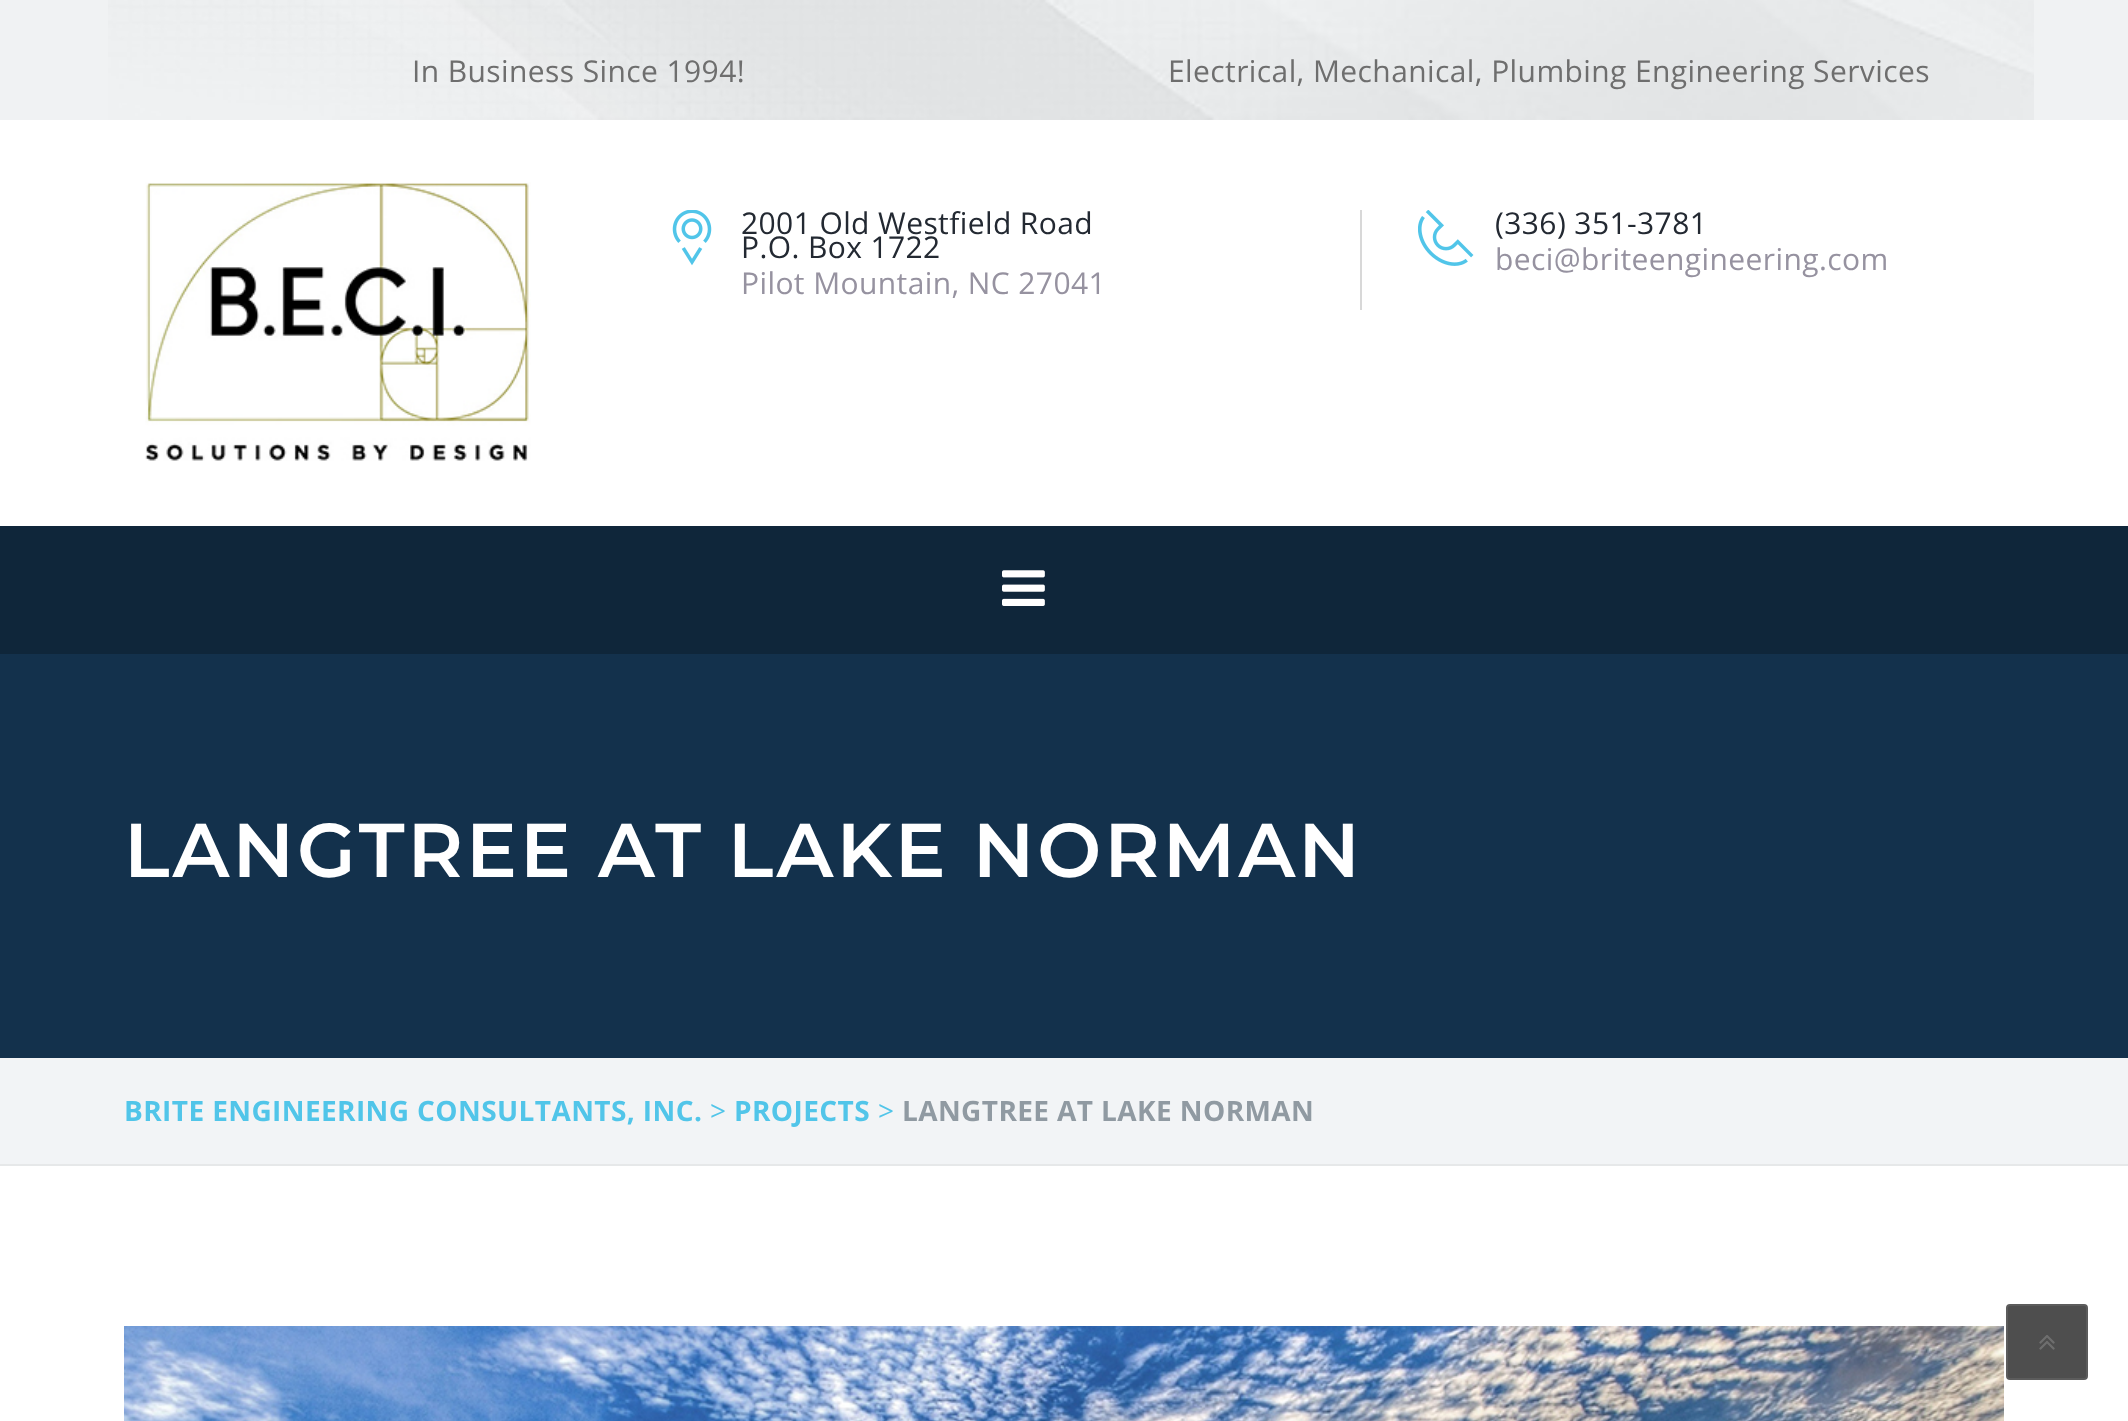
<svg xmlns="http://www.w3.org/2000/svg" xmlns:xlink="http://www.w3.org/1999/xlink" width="2128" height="1421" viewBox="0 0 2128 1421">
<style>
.cls-1{font:30px Open Sans;letter-spacing:0.4px;fill:#6e6e6e}
.cls-2{font:30px Open Sans;letter-spacing:0.4px;fill:#232932}
.cls-3{font:30px Open Sans;letter-spacing:0.4px;fill:#9692a0}
.cls-4{font:600 76px Montserrat;letter-spacing:3px;fill:#ffffff}
.cls-5{font:bold 28px Open Sans;letter-spacing:0.4px;fill:#51c5e9}
.cls-6{font:28px Open Sans;letter-spacing:0.4px;fill:#51c5e9}
.cls-7{font:bold 28px Open Sans;letter-spacing:0.4px;fill:#909aa2}
</style>
<rect width="100%" height="100%" fill="#ffffff"/>
<rect fill="#f0f2f3" x="0" y="0" width="2128" height="120"/>
<image xlink:href="image0.png" x="108" y="0" width="1926" height="120"/>
<image xlink:href="image1.png" x="145" y="182" width="386" height="279"/>
<rect fill="#d8d8d8" x="1360" y="210" width="2" height="100"/>
<image xlink:href="image2.png" x="672" y="210" width="40" height="56"/>
<image xlink:href="image3.png" x="1418" y="210" width="56" height="56"/>
<rect fill="#0f263a" x="0" y="526" width="2128" height="128"/>
<image xlink:href="image4.png" x="1002" y="570" width="43" height="36"/>
<rect fill="#13314c" x="0" y="654" width="2128" height="404"/>
<rect fill="#f2f4f6" x="0" y="1058" width="2128" height="106"/>
<rect fill="#e6e8e9" x="0" y="1164" width="2128" height="2"/>
<image xlink:href="image5.png" x="124" y="1326" width="1880" height="95"/>
<rect fill="#4e4e4e" stroke="#5c5c5c" stroke-width="2" x="2007" y="1305" width="80" height="74" rx="3"/>
<image xlink:href="image6.png" x="2039" y="1335" width="16" height="15"/>
<text class="cls-1" x="412" y="82">In Business Since 1994!</text>
<text class="cls-1" x="1168" y="82">Electrical, Mechanical, Plumbing Engineering Services</text>
<text class="cls-2"><tspan x="741" y="234">2001 Old Westfield Road</tspan><tspan x="741" y="258">P.O. Box 1722</tspan></text>
<text class="cls-3" x="741" y="294">Pilot Mountain, NC 27041</text>
<text class="cls-2" x="1495" y="234">(336) 351-3781</text>
<text class="cls-3" x="1495" y="270">beci@briteengineering.com</text>
<text class="cls-4" x="124" y="877">LANGTREE AT LAKE NORMAN</text>
<text class="cls-5" x="124" y="1121">BRITE ENGINEERING CONSULTANTS, INC.</text>
<text class="cls-6" x="710" y="1121">&gt;</text>
<text class="cls-5" x="734" y="1121">PROJECTS</text>
<text class="cls-6" x="878" y="1121">&gt;</text>
<text class="cls-7" x="902" y="1121">LANGTREE AT LAKE NORMAN</text>
</svg>
